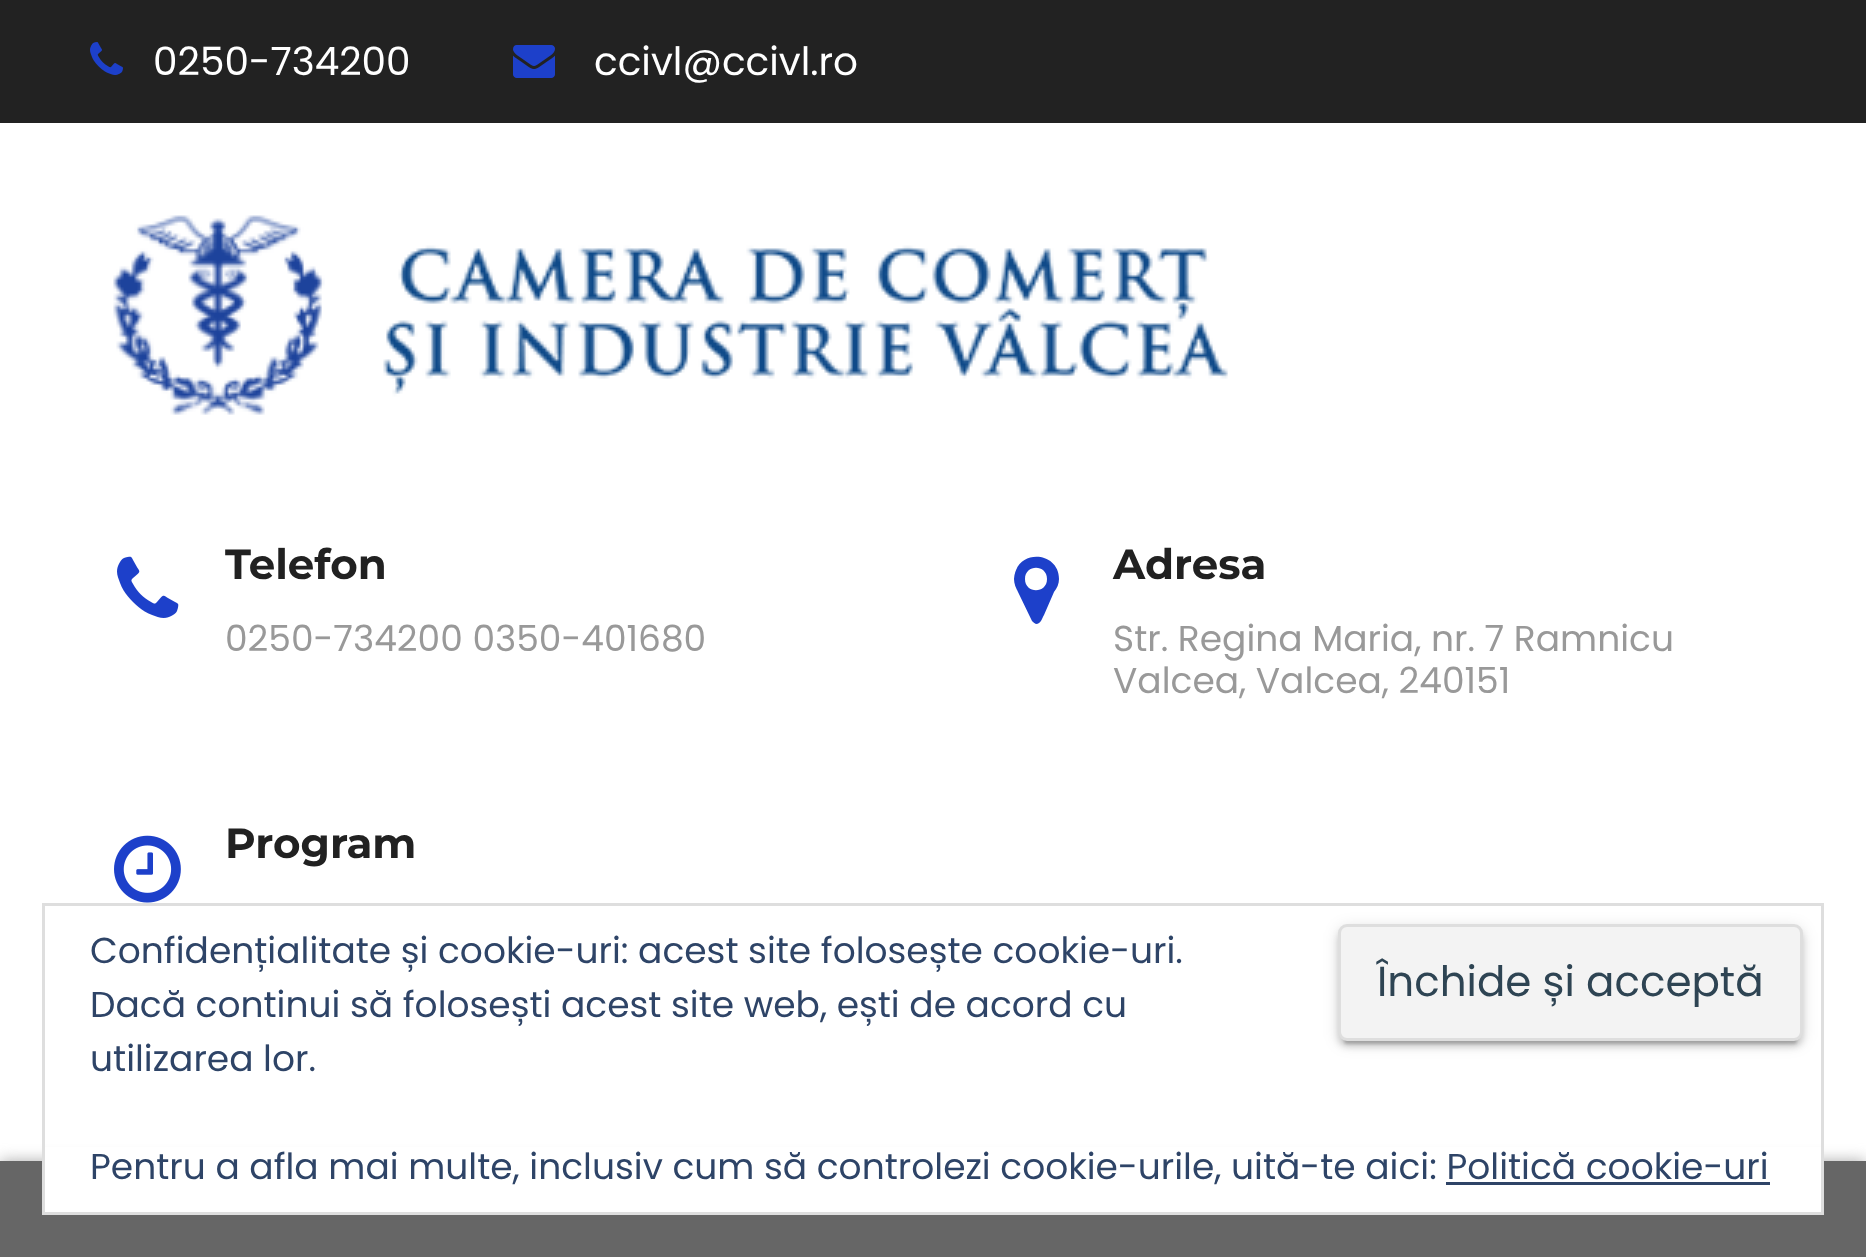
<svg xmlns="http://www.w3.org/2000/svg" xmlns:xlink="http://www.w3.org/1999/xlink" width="1866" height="1257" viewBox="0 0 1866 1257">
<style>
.cls-1{font:39px Poppins;fill:#ffffff}
.cls-2{font:bold 42px Montserrat;fill:#212121}
.cls-3{font:36px Poppins;fill:#999999}
.cls-4{font:36px Poppins;fill:#2e4467}
.cls-5{font:42px Poppins;fill:#2e4453}
</style>
<rect width="100%" height="100%" fill="#ffffff"/>
<rect fill="#222222" x="0" y="0" width="1866" height="123"/>
<image xlink:href="image0.png" x="90" y="42" width="33" height="33"/>
<image xlink:href="image1.png" x="513" y="45" width="42" height="33"/>
<image xlink:href="image2.png" x="113" y="215" width="1115" height="200"/>
<image xlink:href="image3.png" x="117" y="556" width="62" height="62"/>
<path fill="#1d40ca" d="M1047 579C1047 594 1025 594 1025 579C1025 564 1047 564 1047 579ZM1059 579C1059 551 1016 548 1014 579C1014 584 1016 588 1018 592L1032 621C1033 622 1034 623 1036 624C1041 624 1042 618 1044 615L1054 592C1057 588 1059 584 1059 579Z"/>
<image xlink:href="image4.png" x="114" y="835" width="67" height="68"/>
<rect fill="#aaaaaa" filter="blur(7.5px)" x="0" y="1161" width="1866" height="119"/>
<rect fill="#666666" x="0" y="1161" width="1866" height="96"/>
<rect fill="#ffffff" x="45" y="1147" width="1776" height="65"/>
<rect fill="none" stroke="#dedede" stroke-width="3" x="43.5" y="904.5" width="1779" height="309"/>
<rect fill="#000000" fill-opacity="0.12" filter="blur(7.5px)" x="1338" y="927" width="465" height="117" rx="9"/>
<rect fill="#000000" fill-opacity="0.2" filter="blur(1.5px)" x="1344" y="939" width="453" height="105" rx="3"/>
<rect fill="#000000" fill-opacity="0.14" filter="blur(3px)" x="1338" y="930" width="465" height="117" rx="9"/>
<rect fill="#f3f3f3" stroke="#dedede" stroke-width="3" x="1339.5" y="925.5" width="462" height="114" rx="7.5"/>
<rect fill="#2e4467" x="1446" y="1182" width="324" height="3"/>
<text class="cls-1" x="153" y="75">0250-734200</text>
<text class="cls-1" x="594" y="75">ccivl@ccivl.ro</text>
<text class="cls-2" x="225" y="579">Telefon</text>
<text class="cls-3" x="225" y="651">0250-734200 0350-401680</text>
<text class="cls-2" x="1113" y="579">Adresa</text>
<text class="cls-3"><tspan x="1113" y="651">Str. Regina Maria, nr. 7 Ramnicu</tspan><tspan x="1113" y="693">Valcea, Valcea, 240151</tspan></text>
<text class="cls-2" x="225" y="858">Program</text>
<text class="cls-4"><tspan x="90" y="963">Confidențialitate și cookie-uri: acest site folosește cookie-uri.</tspan><tspan x="90" y="1017">Dacă continui să folosești acest site web, ești de acord cu</tspan></text>
<text class="cls-5" x="1377" y="996">Închide și acceptă</text>
<text class="cls-4" x="90" y="1071">utilizarea lor.</text>
<text class="cls-4" x="90" y="1179">Pentru a afla mai multe, inclusiv cum să controlezi cookie-urile, uită-te aici: Politică cookie-uri</text>
</svg>
